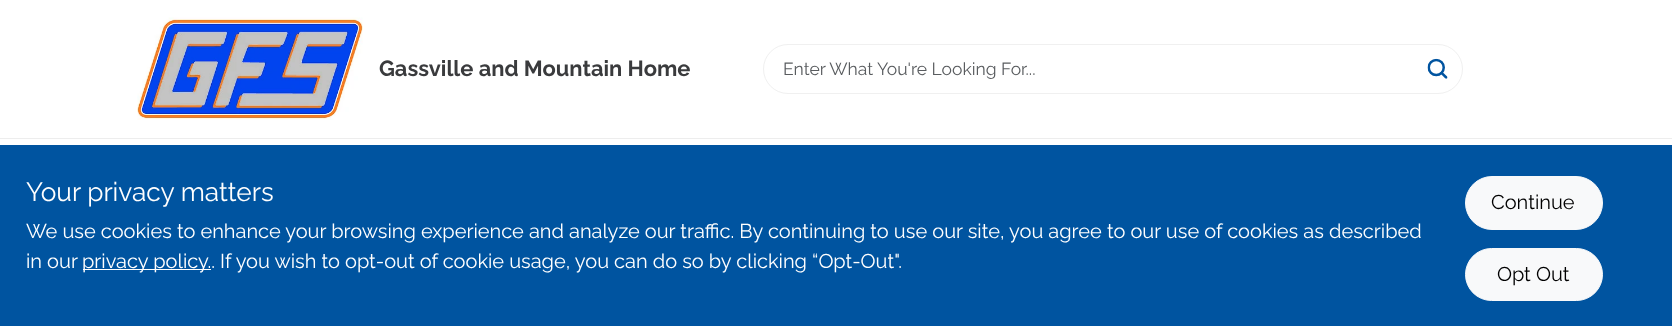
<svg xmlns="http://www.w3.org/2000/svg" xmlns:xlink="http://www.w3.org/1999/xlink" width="1672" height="326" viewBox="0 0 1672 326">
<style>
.cls-1{font:bold 21.9px Raleway;fill:#3a3b3d}
.cls-2{font:17.5px Raleway;fill:#595c5f}
.cls-3{font:26.25px Raleway;fill:#ffffff}
.cls-4{font:20px Raleway;fill:#ffffff}
.cls-5{font:20px Raleway;fill:#000000}
</style>
<rect width="100%" height="100%" fill="#ffffff"/>
<image xlink:href="image0.png" x="137" y="17" width="226" height="103"/>
<rect fill="none" stroke="#f0f0f0" x="763.5" y="44.5" width="699" height="49" rx="24.5"/>
<image xlink:href="image1.png" x="1427" y="58" width="21" height="21"/>
<rect fill="#ededed" x="0" y="138" width="1672" height="1"/>
<rect fill="#0054a0" x="0" y="145" width="1672" height="181"/>
<rect fill="#ffffff" x="83" y="269" width="128" height="1"/>
<rect fill="#f8f9fa" stroke="#f8f9fa" x="1465.5" y="176.5" width="137" height="53" rx="26.5"/>
<rect fill="#f8f9fa" stroke="#f8f9fa" x="1465.5" y="248.5" width="137" height="52" rx="26"/>
<text class="cls-1" x="379" y="76">Gassville and Mountain Home</text>
<text class="cls-2" x="783" y="75">Enter What You're Looking For...</text>
<text class="cls-3" x="26" y="201">Your privacy matters</text>
<text class="cls-4"><tspan x="26" y="238">We use cookies to enhance your browsing experience and analyze our traffic. By continuing to use our site, you agree to our use of cookies as described</tspan><tspan x="26" y="268">in our</tspan></text>
<text class="cls-4" x="82" y="268">privacy policy.. If you wish to opt-out of cookie usage, you can do so by clicking “Opt-Out".</text>
<text class="cls-5" x="1491" y="209">Continue</text>
<text class="cls-5" x="1497" y="281">Opt Out</text>
</svg>
